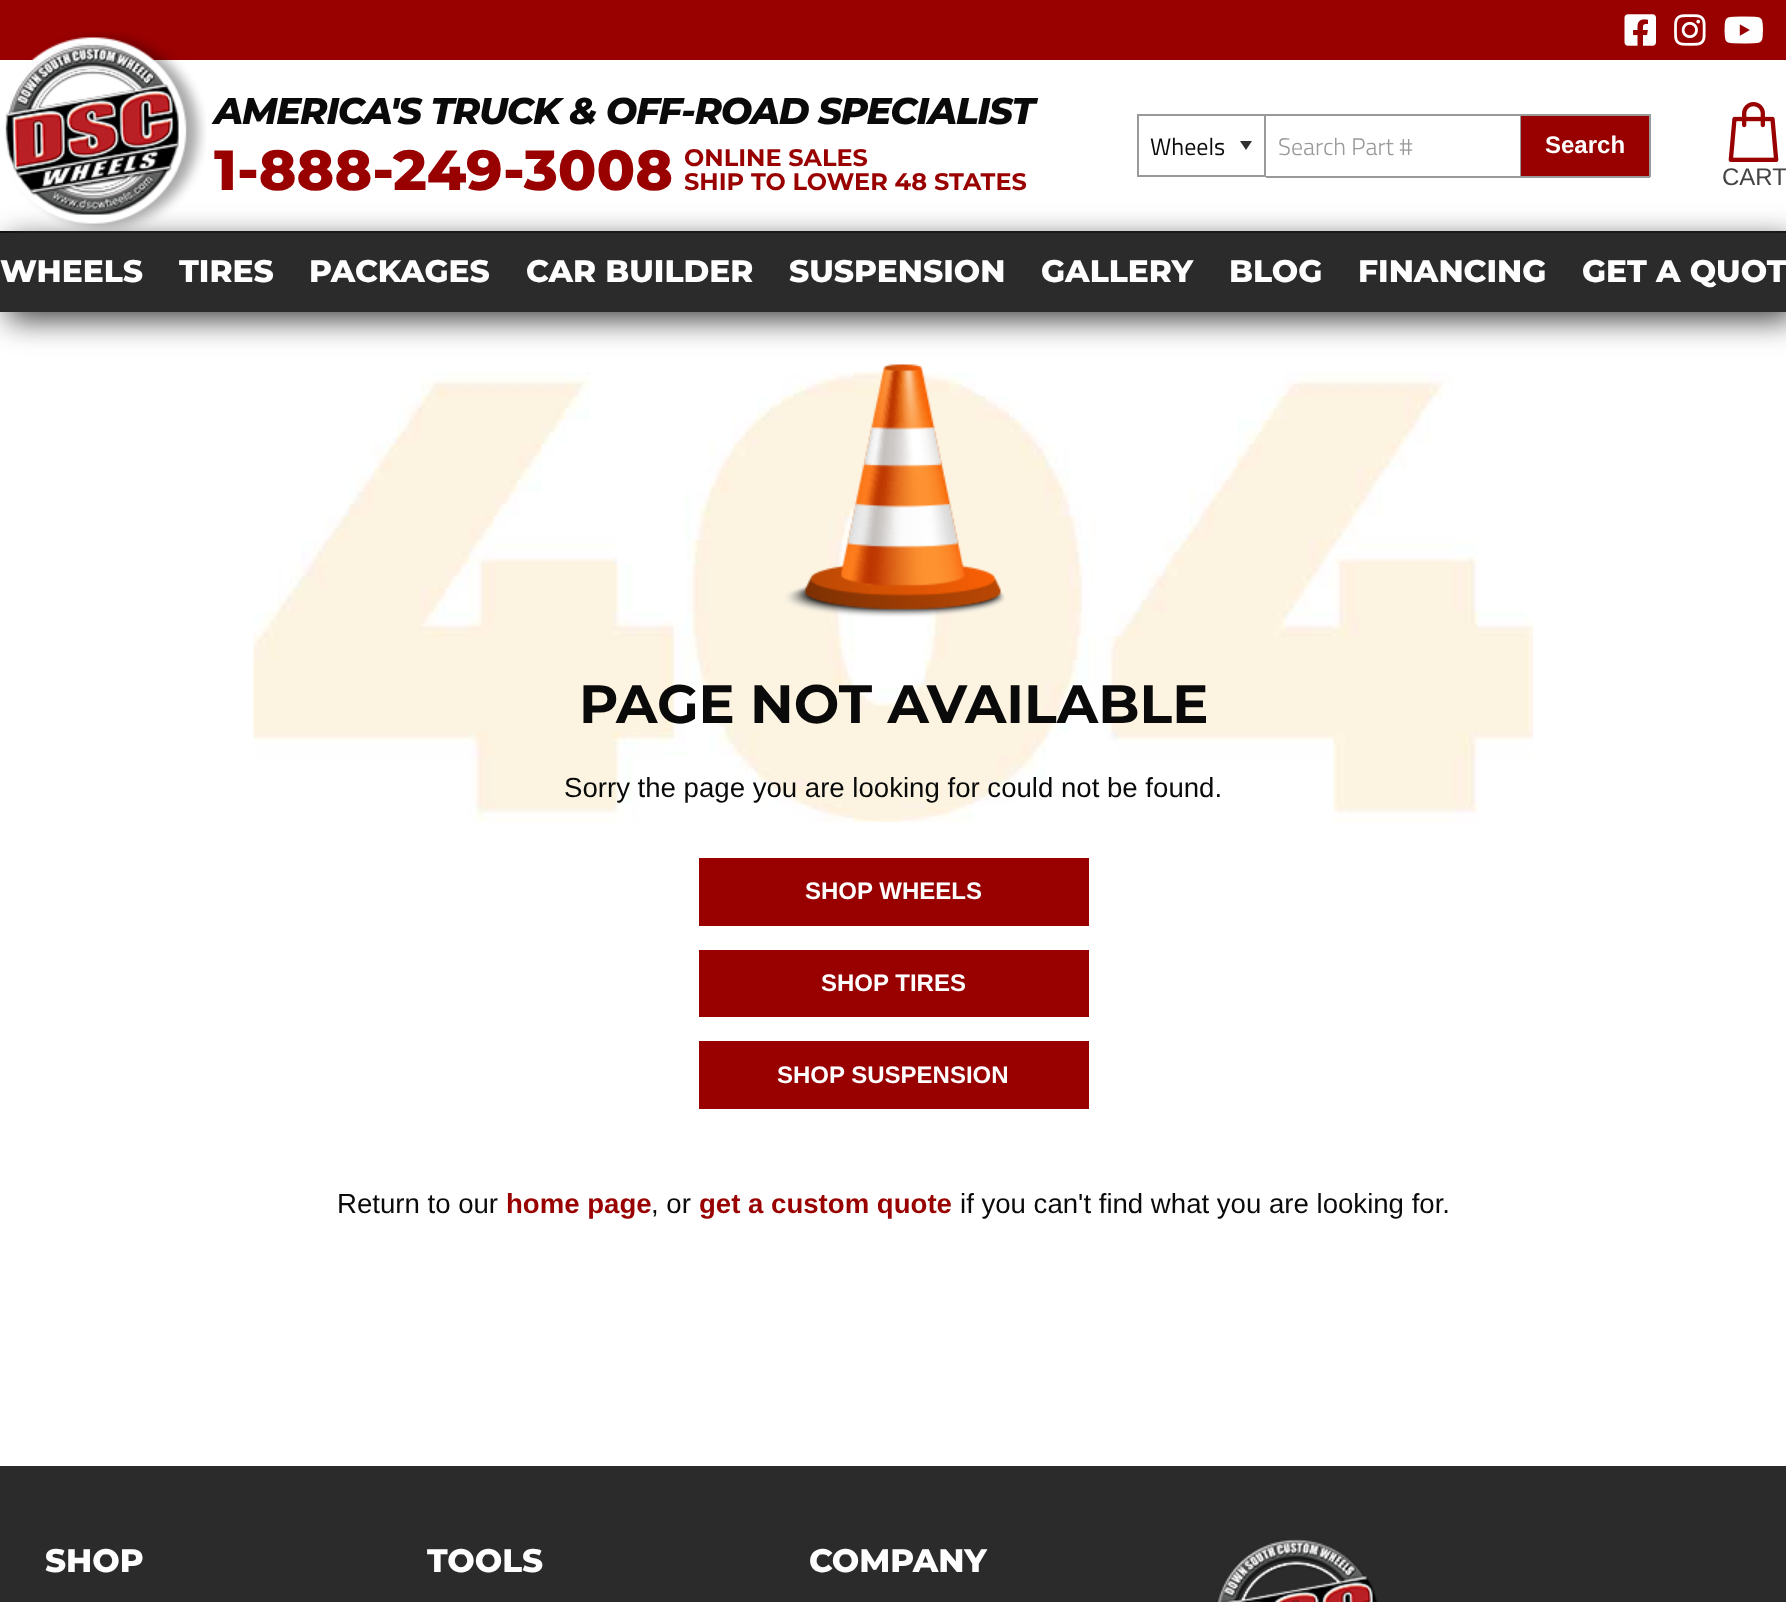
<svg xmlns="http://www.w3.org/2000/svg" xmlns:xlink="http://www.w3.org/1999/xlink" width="1786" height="1602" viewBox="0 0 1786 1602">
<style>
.cls-1{font:italic 800 37.2px Montserrat;letter-spacing:-1.2px;fill:#0a0a0a}
.cls-2{font:800 56.5px Montserrat;fill:#990000}
.cls-3{font:bold 24px Montserrat;fill:#990000}
.cls-4{font:24px Titillium Web;fill:#0a0a0a}
.cls-5{font:300 24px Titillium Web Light;fill:#999999}
.cls-6{font:bold 24px Liberation Sans;fill:#fefefe}
.cls-7{font:24px Liberation Sans;fill:#444444}
.cls-8{font:800 31.25px Montserrat;fill:#fefefe}
.cls-9{font:bold 54px Montserrat;fill:#0a0a0a}
.cls-10{font:27.6px Liberation Sans;fill:#0a0a0a}
.cls-11{font:bold 27.6px Liberation Sans;fill:#990000}
.cls-12{font:800 32.5px Montserrat;fill:#fefefe}
</style>
<defs>
<clipPath id="clip1"><path d="M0 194H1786V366H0ZM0 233H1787V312H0Z" clip-rule="evenodd"/></clipPath>
</defs>
<rect width="100%" height="100%" fill="#ffffff"/>
<rect fill="#2b2b2b" x="0" y="233" width="1786" height="79"/>
<rect fill="#990000" x="0" y="0" width="1786" height="60"/>
<image xlink:href="image0.png" x="1624" y="14" width="32" height="32"/>
<image xlink:href="image1.png" x="1674" y="14" width="32" height="32"/>
<image xlink:href="image2.png" x="1724" y="16" width="39" height="28"/>
<rect fill="#0a0a0a" x="0" y="231" width="1786" height="2"/>
<image xlink:href="image5.png" x="253" y="372" width="1281" height="451"/>
<image xlink:href="image6.png" x="785" y="364" width="220" height="253"/>
<g clip-path="url(#clip1)">
<rect fill="#444444" filter="blur(15px)" x="8" y="240" width="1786" height="80"/>
</g>
<image xlink:href="image3.png" x="5" y="31" width="201" height="200"/>
<path fill="#2e3130" d="M1240 141H1252L1246 150Z"/>
<rect fill="none" stroke="#999999" stroke-width="2" x="1138" y="115" width="127" height="61"/>
<rect fill="#999999" x="1266" y="114" width="384" height="2"/>
<rect fill="#999999" x="1520" y="114" width="1" height="63"/>
<rect fill="#999999" x="1266" y="176" width="255" height="2"/>
<rect fill="#990000" x="1521" y="116" width="128" height="60"/>
<rect fill="#999999" x="1649" y="114" width="2" height="63"/>
<rect fill="#999999" x="1521" y="176" width="129" height="2"/>
<image xlink:href="image4.png" x="1728" y="102" width="51" height="60"/>
<rect fill="#990000" x="699" y="858" width="390" height="68"/>
<rect fill="#990000" x="699" y="950" width="390" height="67"/>
<rect fill="#990000" x="699" y="1041" width="390" height="68"/>
<rect fill="#2b2b2b" x="0" y="1466" width="1786" height="136"/>
<image xlink:href="image7.png" x="1216" y="1539" width="162" height="63"/>
<text class="cls-1" x="214" y="124">AMERICA'S TRUCK &amp; OFF-ROAD SPECIALIST</text>
<text class="cls-2" x="214" y="190">1-888-249-3008</text>
<text class="cls-3"><tspan x="684" y="166">ONLINE SALES</tspan><tspan x="684" y="190">SHIP TO LOWER 48 STATES</tspan></text>
<text class="cls-4" x="1150" y="155">Wheels</text>
<text class="cls-5" x="1278" y="155">Search Part #</text>
<text class="cls-6" x="1545" y="153">Search</text>
<text class="cls-7" x="1722" y="185">CART</text>
<text class="cls-8" x="0" y="282">WHEELS</text>
<text class="cls-8" x="179" y="282">TIRES</text>
<text class="cls-8" x="309" y="282">PACKAGES</text>
<text class="cls-8" x="526" y="282">CAR BUILDER</text>
<text class="cls-8" x="789" y="282">SUSPENSION</text>
<text class="cls-8" x="1041" y="282">GALLERY</text>
<text class="cls-8" x="1229" y="282">BLOG</text>
<text class="cls-8" x="1358" y="282">FINANCING</text>
<text class="cls-8" x="1582" y="282">GET A QUOT</text>
<text class="cls-9" x="579" y="723">PAGE NOT AVAILABLE</text>
<text class="cls-10" x="564" y="797">Sorry the page you are looking for could not be found.</text>
<text class="cls-6" x="805" y="899">SHOP WHEELS</text>
<text class="cls-6" x="821" y="991">SHOP TIRES</text>
<text class="cls-6" x="777" y="1083">SHOP SUSPENSION</text>
<text class="cls-10" x="337" y="1213">Return to our</text>
<text class="cls-11" x="506" y="1213">home page</text>
<text class="cls-10" x="651" y="1213">, or</text>
<text class="cls-11" x="699" y="1213">get a custom quote</text>
<text class="cls-10" x="960" y="1213">if you can't find what you are looking for.</text>
<text class="cls-12" x="45" y="1572">SHOP</text>
<text class="cls-12" x="427" y="1572">TOOLS</text>
<text class="cls-12" x="809" y="1572">COMPANY</text>
</svg>
